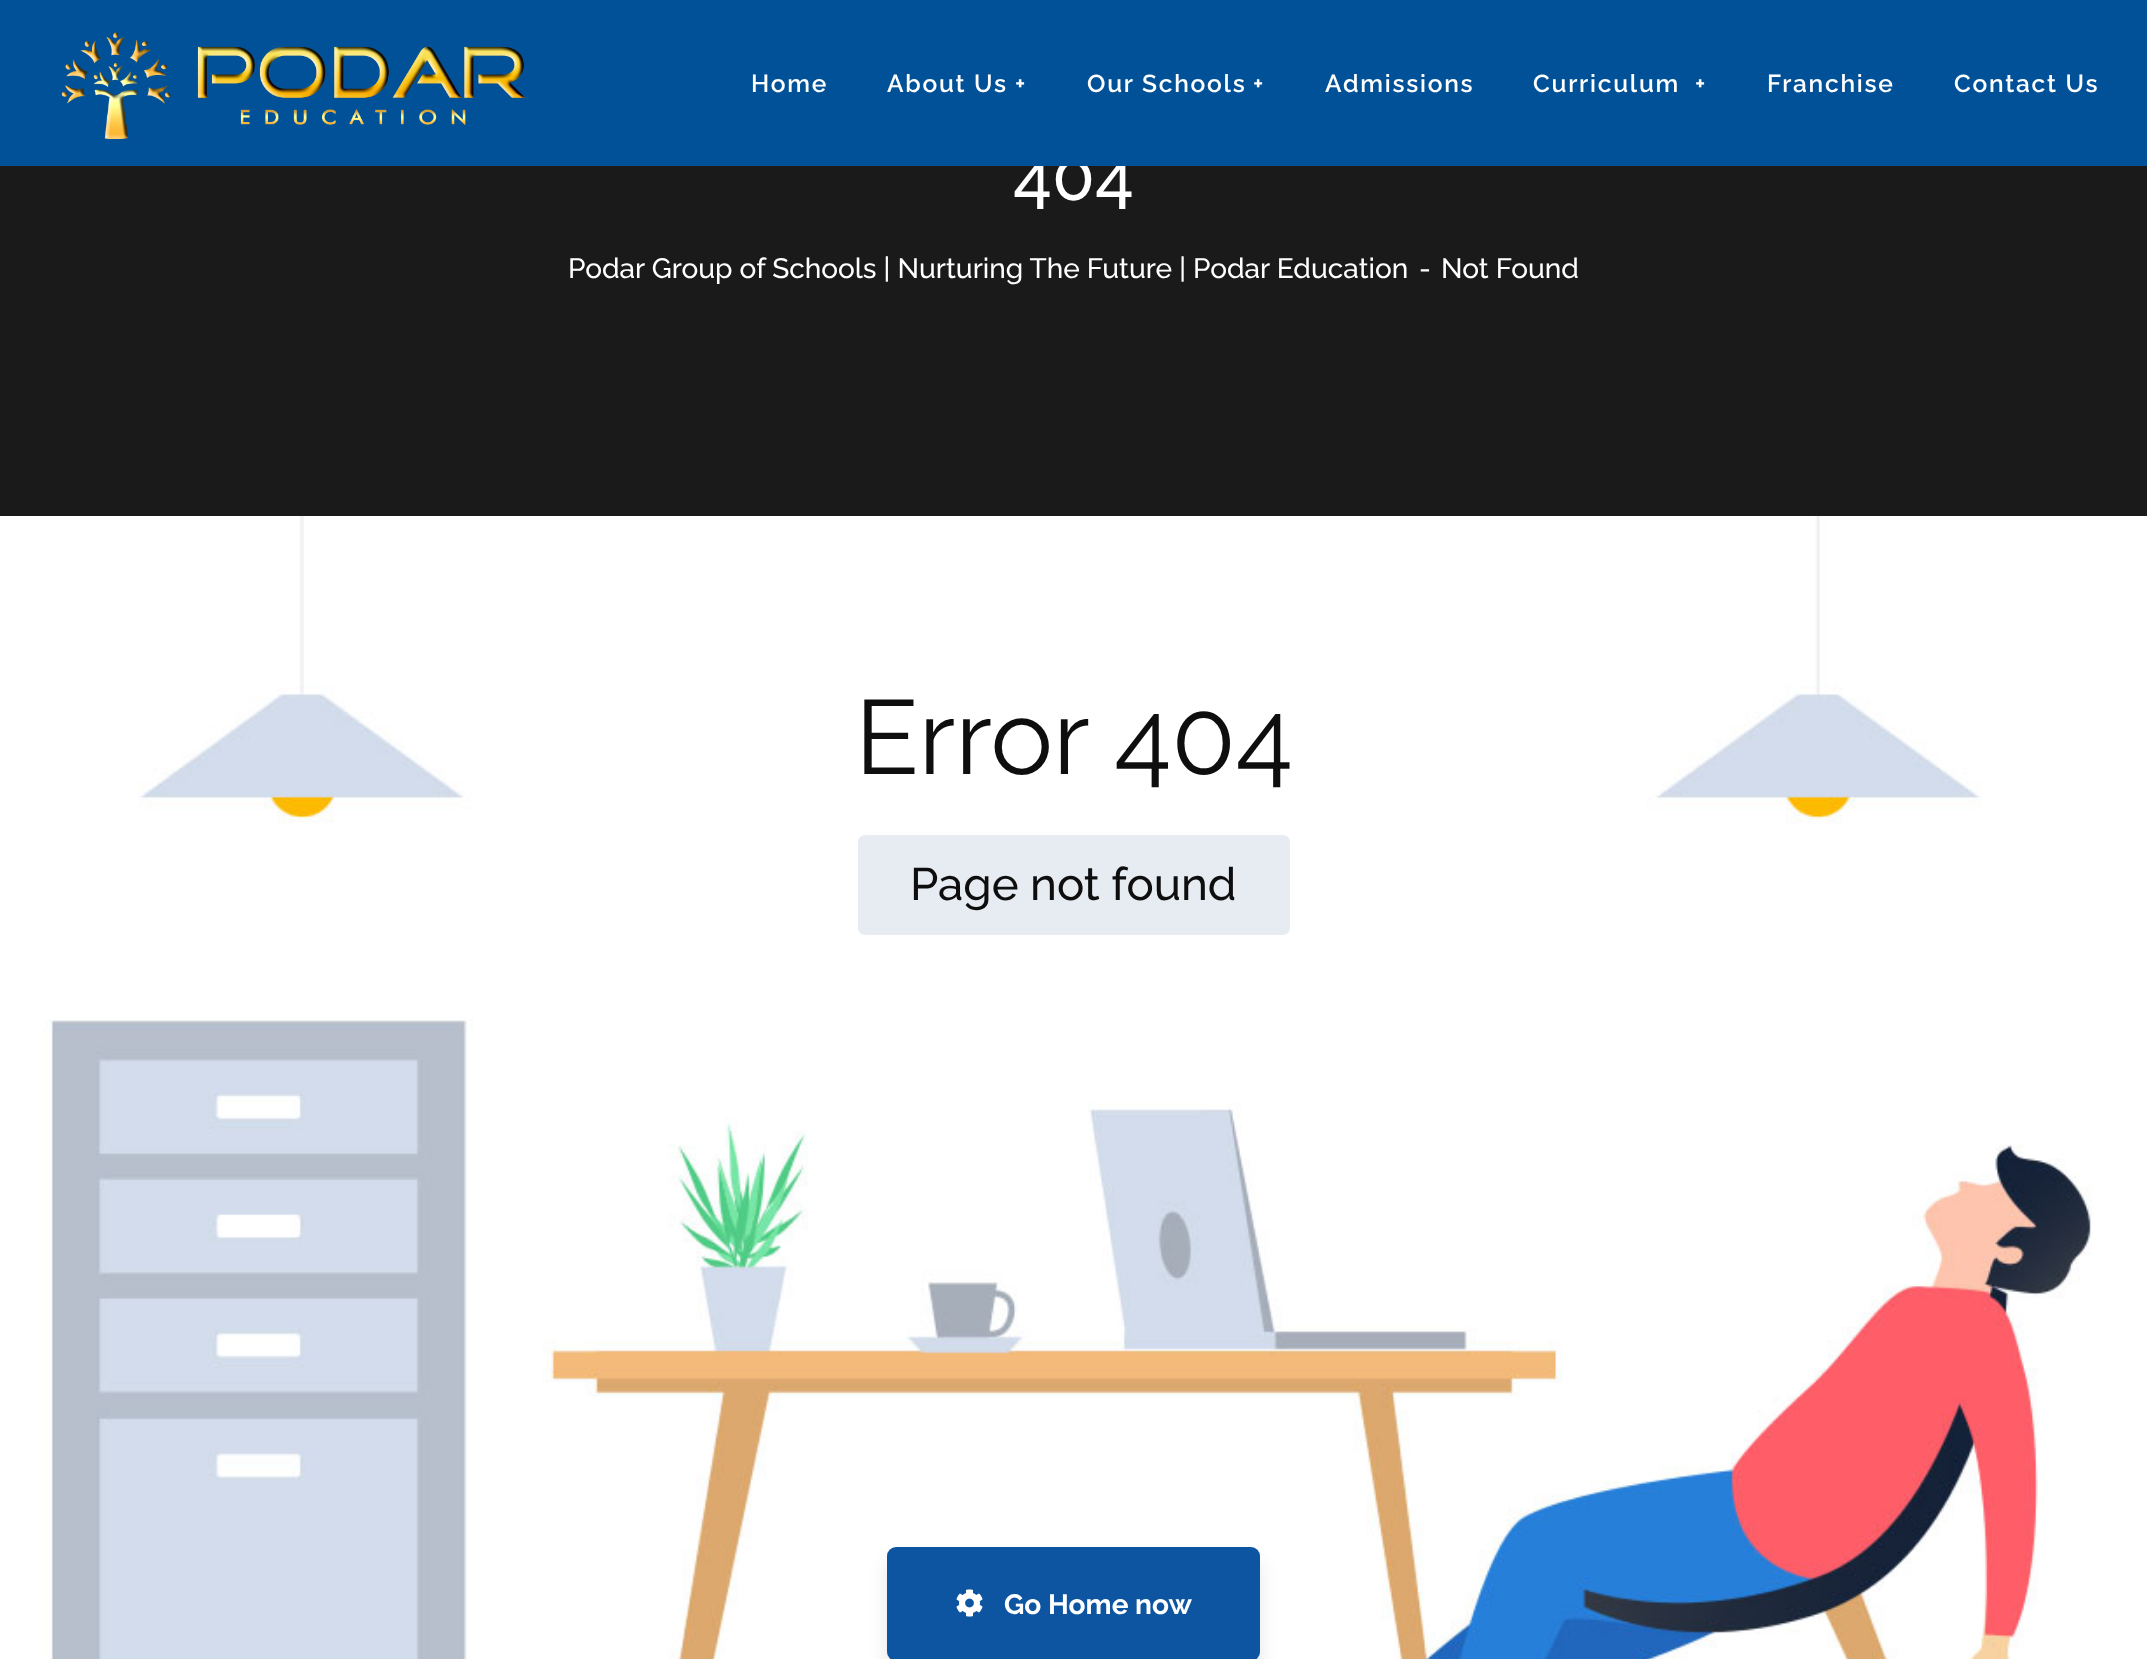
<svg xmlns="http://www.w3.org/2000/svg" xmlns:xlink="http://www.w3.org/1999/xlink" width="2147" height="1659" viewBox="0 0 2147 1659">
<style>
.cls-1{font:500 70px Raleway;fill:#ffffff}
.cls-2{font:600 24.5px Raleway;letter-spacing:1.75px;fill:#ffffff}
.cls-3{font:500 28px Raleway;fill:#ffffff}
.cls-4{font:105px Raleway;fill:#0e0e0e}
.cls-5{font:500 45.5px Raleway;fill:#0e0e0e}
.cls-6{font:bold 28px Raleway;fill:#ffffff}
</style>
<rect width="100%" height="100%" fill="#ffffff"/>
<rect fill="#1a1a1a" x="0" y="166" width="2147" height="350"/>
<image xlink:href="image1.png" x="44" y="516" width="2049" height="1143"/>
<rect fill="#e7ecf3" x="858" y="835" width="432" height="100" rx="7"/>
<rect fill="#0c0c0c" fill-opacity="0.1" filter="blur(9px)" x="887" y="1561" width="373" height="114" rx="9"/>
<rect fill="#0d55a0" x="887" y="1547" width="373" height="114" rx="9"/>
<image xlink:href="image2.png" x="956" y="1589" width="27" height="28"/>
<text class="cls-1" x="1013" y="200">404</text>
<rect fill="#015198" x="0" y="0" width="2147" height="166"/>
<image xlink:href="image0.png" x="61" y="32" width="464" height="108"/>
<text class="cls-2" x="1954" y="92">Contact Us</text>
<text class="cls-2" x="1767" y="92">Franchise</text>
<text class="cls-2" x="1695" y="92">+</text>
<text class="cls-2" x="1533" y="92">Curriculum</text>
<text class="cls-2" x="1325" y="92">Admissions</text>
<text class="cls-2" x="1253" y="92">+</text>
<text class="cls-2" x="1087" y="92">Our Schools</text>
<text class="cls-2" x="1015" y="92">+</text>
<text class="cls-2" x="887" y="92">About Us</text>
<text class="cls-2" x="751" y="92">Home</text>
<text class="cls-3" x="568" y="278">Podar Group of Schools | Nurturing The Future | Podar Education</text>
<text class="cls-3" x="1419" y="278">-</text>
<text class="cls-3" x="1441" y="278">Not Found</text>
<text class="cls-4" x="855" y="774">Error 404</text>
<text class="cls-5" x="910" y="900">Page not found</text>
<text class="cls-6" x="1004" y="1614">Go Home now</text>
</svg>
